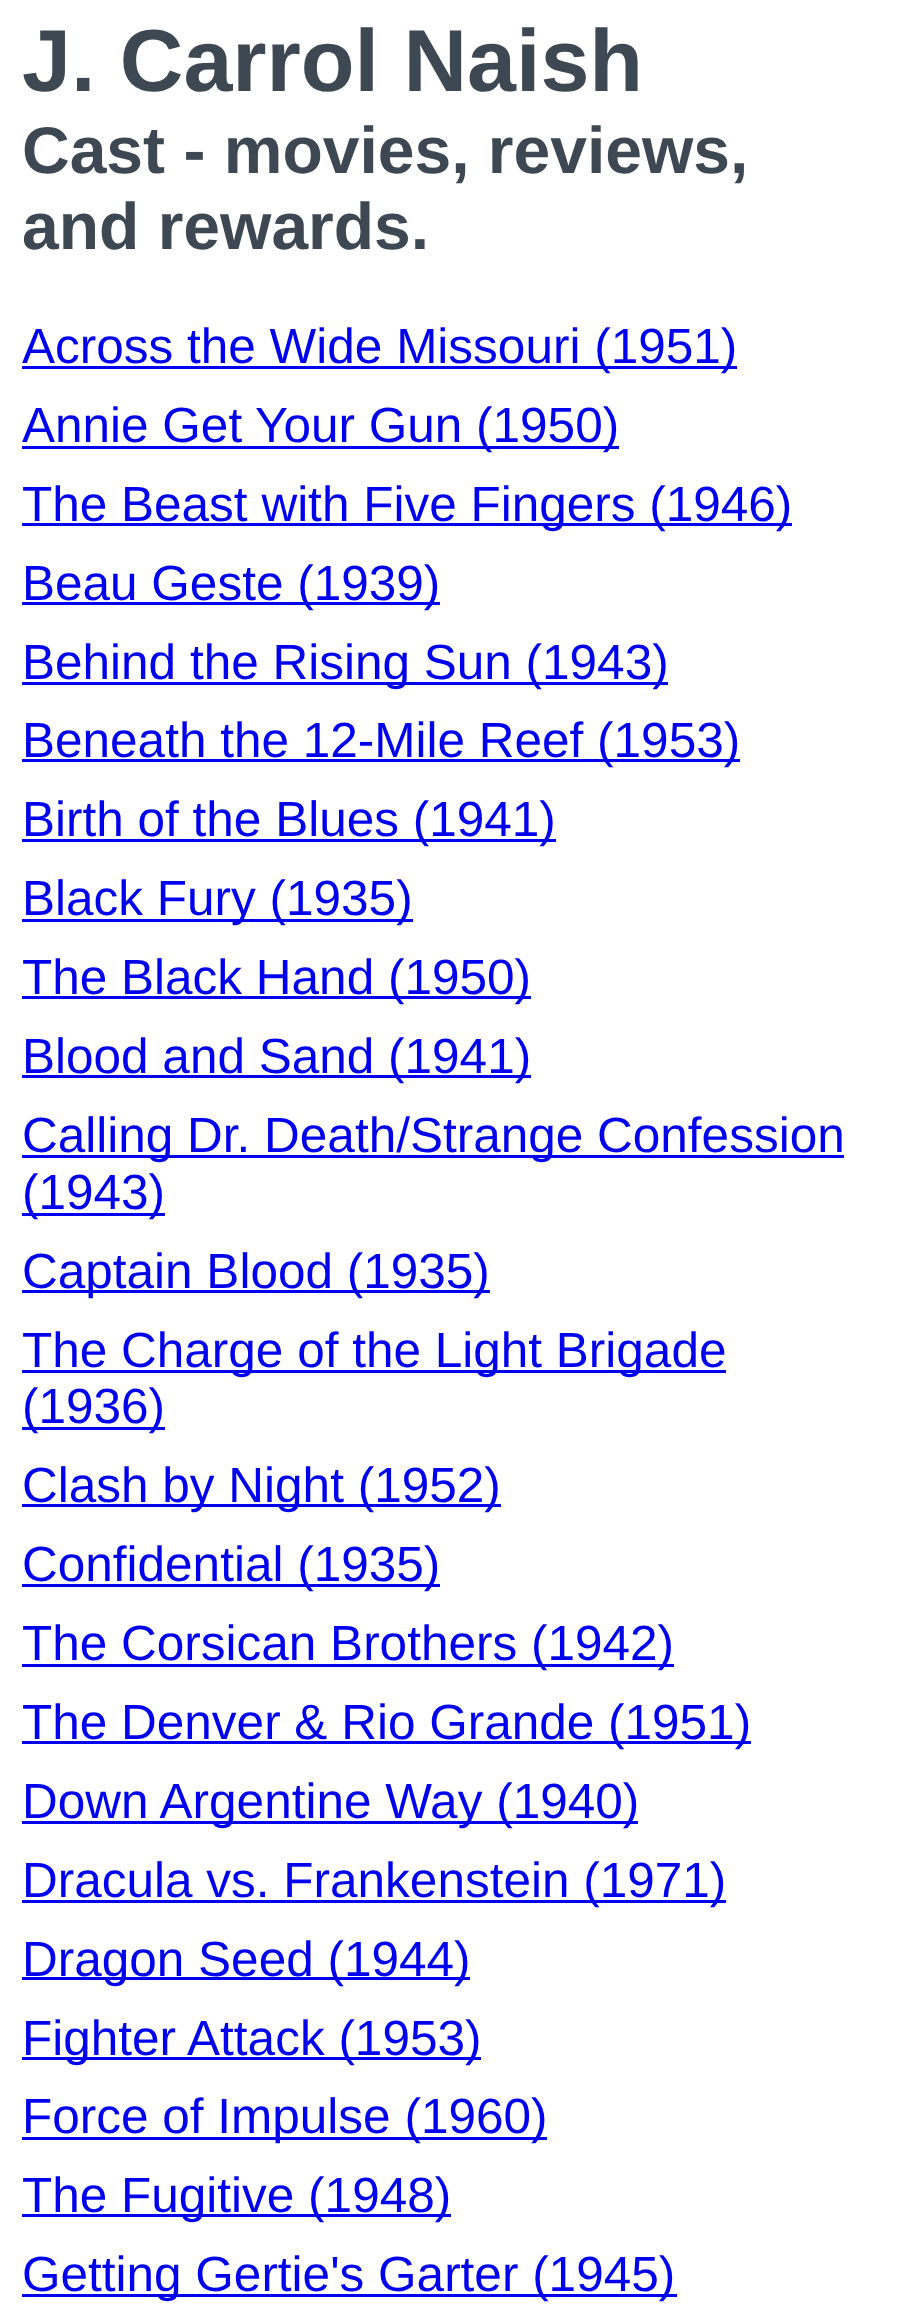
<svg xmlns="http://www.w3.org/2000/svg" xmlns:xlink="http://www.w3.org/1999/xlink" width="900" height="2314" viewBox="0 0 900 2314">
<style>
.cls-1{font:bold 88px Liberation Sans;fill:#3d4852}
.cls-2{font:bold 66px Liberation Sans;fill:#3d4852}
.cls-3{font:49.5px Liberation Sans;fill:#0000ee}
</style>
<rect width="100%" height="100%" fill="#ffffff"/>
<rect fill="#0000ee" x="22" y="366" width="715" height="3"/>
<rect fill="#0000ee" x="22" y="446" width="597" height="3"/>
<rect fill="#0000ee" x="22" y="523" width="770" height="3"/>
<rect fill="#0000ee" x="22" y="602" width="418" height="3"/>
<rect fill="#0000ee" x="22" y="682" width="646" height="3"/>
<rect fill="#0000ee" x="22" y="759" width="718" height="3"/>
<rect fill="#0000ee" x="22" y="839" width="534" height="3"/>
<rect fill="#0000ee" x="22" y="919" width="391" height="3"/>
<rect fill="#0000ee" x="22" y="996" width="509" height="3"/>
<rect fill="#0000ee" x="22" y="1075" width="509" height="3"/>
<rect fill="#0000ee" x="22" y="1155" width="822" height="3"/>
<rect fill="#0000ee" x="22" y="1213" width="143" height="3"/>
<rect fill="#0000ee" x="22" y="1290" width="468" height="3"/>
<rect fill="#0000ee" x="22" y="1370" width="704" height="3"/>
<rect fill="#0000ee" x="22" y="1427" width="143" height="3"/>
<rect fill="#0000ee" x="22" y="1504" width="479" height="3"/>
<rect fill="#0000ee" x="22" y="1584" width="418" height="3"/>
<rect fill="#0000ee" x="22" y="1664" width="652" height="3"/>
<rect fill="#0000ee" x="22" y="1741" width="729" height="3"/>
<rect fill="#0000ee" x="22" y="1821" width="616" height="3"/>
<rect fill="#0000ee" x="22" y="1900" width="704" height="3"/>
<rect fill="#0000ee" x="22" y="1977" width="448" height="3"/>
<rect fill="#0000ee" x="22" y="2057" width="459" height="3"/>
<rect fill="#0000ee" x="22" y="2137" width="525" height="3"/>
<rect fill="#0000ee" x="22" y="2214" width="429" height="3"/>
<rect fill="#0000ee" x="22" y="2294" width="655" height="3"/>
<text class="cls-1" x="22" y="91">J. Carrol Naish</text>
<text class="cls-2"><tspan x="22" y="173">Cast - movies, reviews,</tspan><tspan x="22" y="249">and rewards.</tspan></text>
<text class="cls-3"><tspan x="22" y="363">Across the Wide Missouri (1951)</tspan><tspan x="22" y="442">Annie Get Your Gun (1950)</tspan><tspan x="22" y="521">The Beast with Five Fingers (1946)</tspan><tspan x="22" y="600">Beau Geste (1939)</tspan><tspan x="22" y="679">Behind the Rising Sun (1943)</tspan><tspan x="22" y="757">Beneath the 12-Mile Reef (1953)</tspan><tspan x="22" y="836">Birth of the Blues (1941)</tspan><tspan x="22" y="915">Black Fury (1935)</tspan><tspan x="22" y="994">The Black Hand (1950)</tspan><tspan x="22" y="1073">Blood and Sand (1941)</tspan><tspan x="22" y="1152">Calling Dr. Death/Strange Confession</tspan><tspan x="22" y="1209">(1943)</tspan><tspan x="22" y="1288">Captain Blood (1935)</tspan><tspan x="22" y="1367">The Charge of the Light Brigade</tspan><tspan x="22" y="1423">(1936)</tspan><tspan x="22" y="1502">Clash by Night (1952)</tspan><tspan x="22" y="1581">Confidential (1935)</tspan><tspan x="22" y="1660">The Corsican Brothers (1942)</tspan><tspan x="22" y="1739">The Denver &amp; Rio Grande (1951)</tspan><tspan x="22" y="1818">Down Argentine Way (1940)</tspan><tspan x="22" y="1897">Dracula vs. Frankenstein (1971)</tspan><tspan x="22" y="1976">Dragon Seed (1944)</tspan><tspan x="22" y="2055">Fighter Attack (1953)</tspan><tspan x="22" y="2133">Force of Impulse (1960)</tspan><tspan x="22" y="2212">The Fugitive (1948)</tspan><tspan x="22" y="2291">Getting Gertie's Garter (1945)</tspan></text>
</svg>
